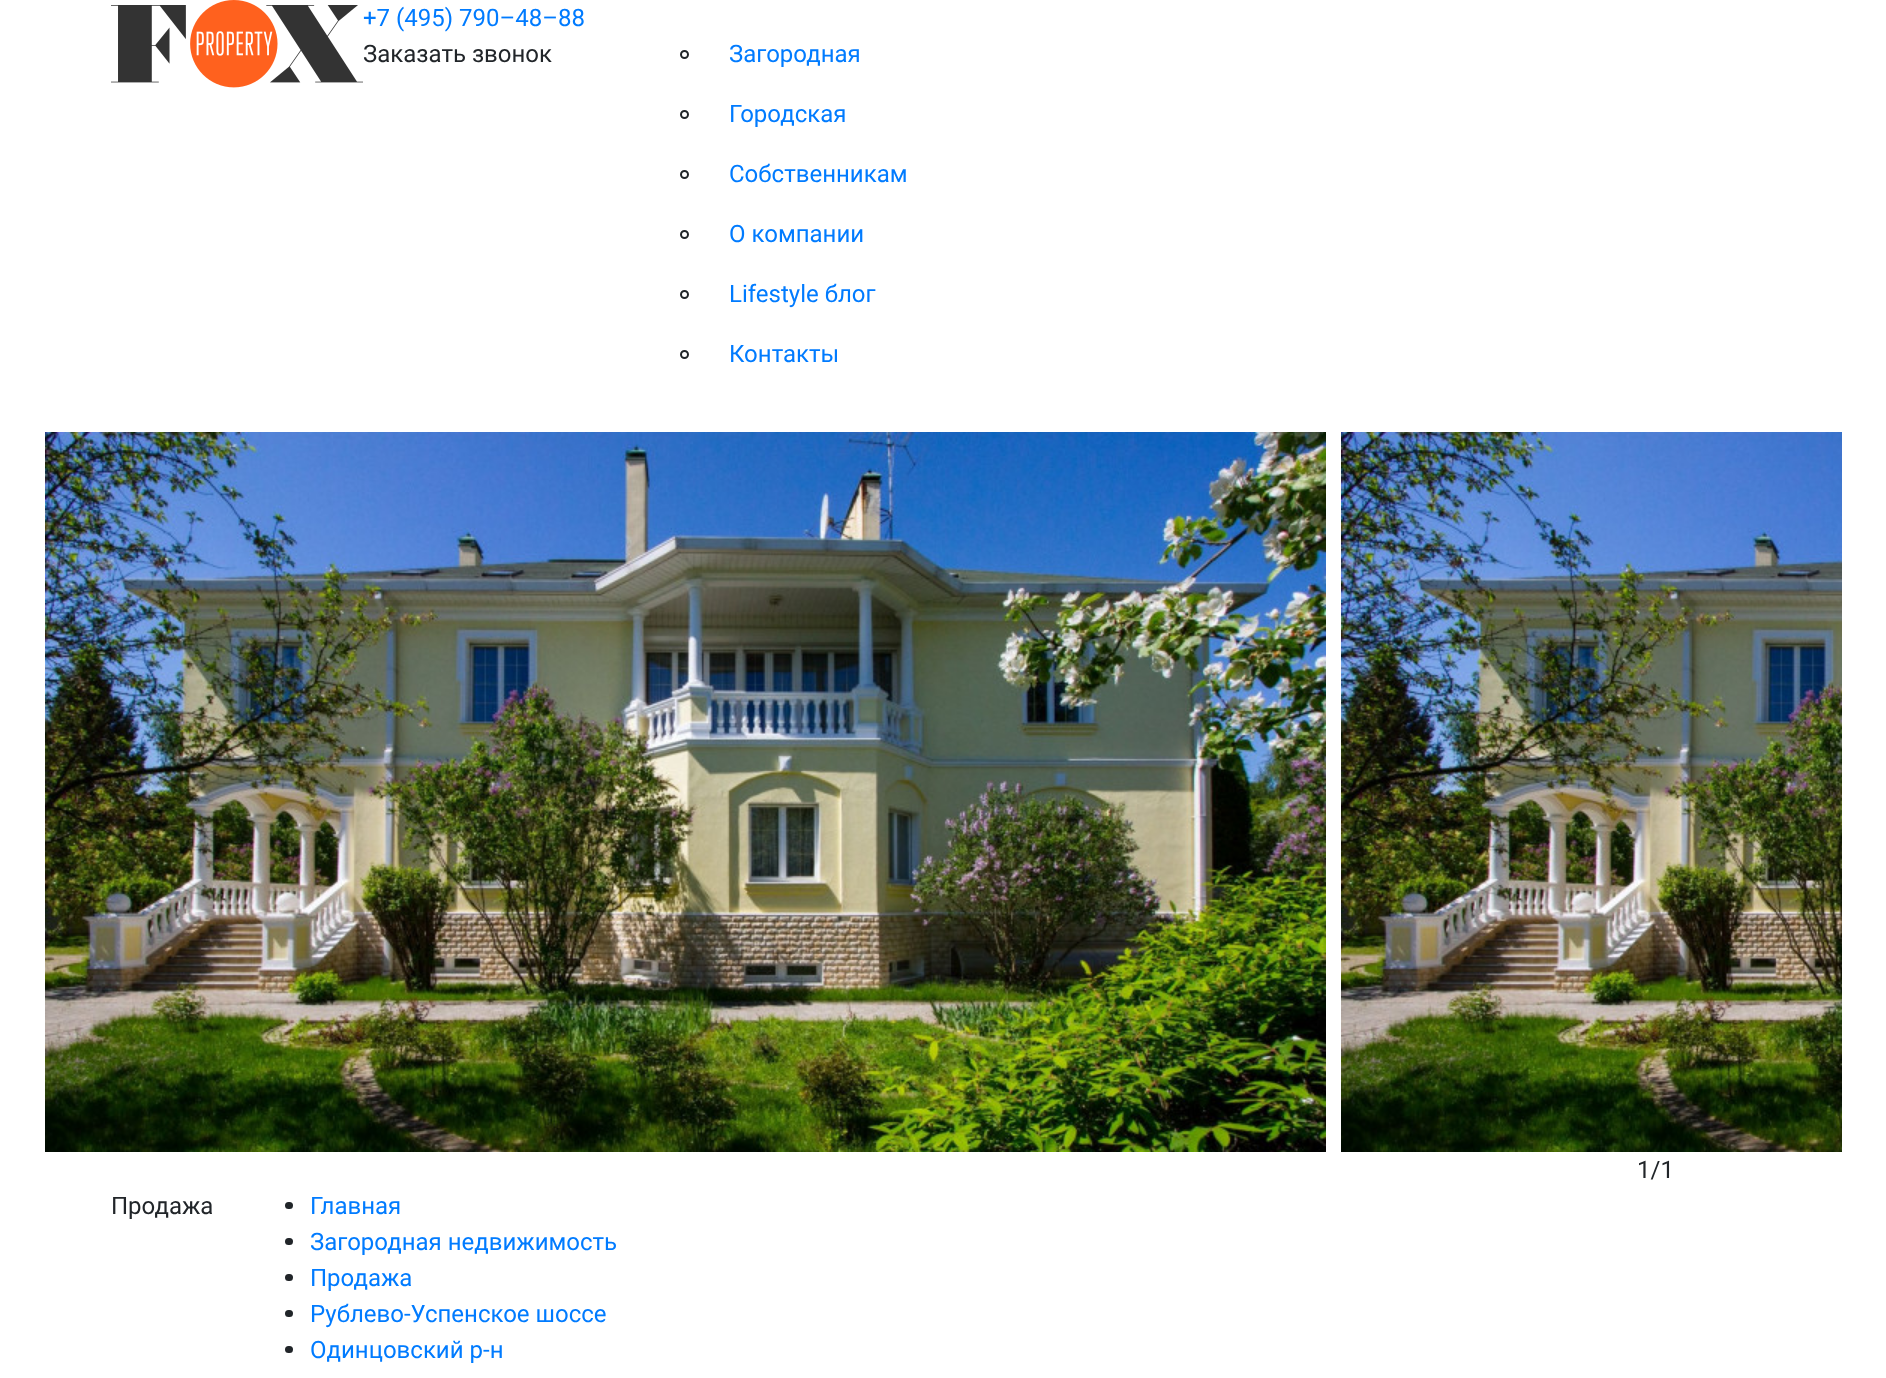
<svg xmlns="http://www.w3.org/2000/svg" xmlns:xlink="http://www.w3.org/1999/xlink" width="1886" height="1378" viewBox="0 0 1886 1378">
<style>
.cls-1{font:24px Roboto;fill:#007bff}
.cls-2{font:24px Roboto;fill:#212529}
</style>
<rect width="100%" height="100%" fill="#ffffff"/>
<image xlink:href="image0.png" x="111" y="0" width="252" height="88"/>
<circle fill="none" stroke="#212529" stroke-width="2" cx="684.5" cy="54.5" r="3.5"/>
<circle fill="none" stroke="#212529" stroke-width="2" cx="684.5" cy="114.5" r="3.5"/>
<circle fill="none" stroke="#212529" stroke-width="2" cx="684.5" cy="174.5" r="3.5"/>
<circle fill="none" stroke="#212529" stroke-width="2" cx="684.5" cy="234.5" r="3.5"/>
<circle fill="none" stroke="#212529" stroke-width="2" cx="684.5" cy="294.5" r="3.5"/>
<circle fill="none" stroke="#212529" stroke-width="2" cx="684.5" cy="354.5" r="3.5"/>
<image xlink:href="image1.png" x="45" y="432" width="1281" height="720"/>
<image xlink:href="image2.png" x="1341" y="432" width="501" height="720"/>
<rect fill="#212529" x="285" y="1202" width="8" height="7" rx="3.5"/>
<rect fill="#212529" x="285" y="1238" width="8" height="7" rx="3.5"/>
<rect fill="#212529" x="285" y="1274" width="8" height="7" rx="3.5"/>
<rect fill="#212529" x="285" y="1310" width="8" height="7" rx="3.5"/>
<rect fill="#212529" x="285" y="1346" width="8" height="7" rx="3.5"/>
<text class="cls-1" x="363" y="26">+7 (495) 790–48–88</text>
<text class="cls-2" x="363" y="62">Заказать звонок</text>
<text class="cls-1" x="729" y="62">Загородная</text>
<text class="cls-1" x="729" y="122">Городская</text>
<text class="cls-1" x="729" y="182">Собственникам</text>
<text class="cls-1" x="729" y="242">О компании</text>
<text class="cls-1" x="729" y="302">Lifestyle блог</text>
<text class="cls-1" x="729" y="362">Контакты</text>
<text class="cls-2" x="1637" y="1178">1/1</text>
<text class="cls-2" x="111" y="1214">Продажа</text>
<text class="cls-1"><tspan x="310" y="1214">Главная</tspan><tspan x="310" y="1250">Загородная недвижимость</tspan><tspan x="310" y="1286">Продажа</tspan><tspan x="310" y="1322">Рублево-Успенское шоссе</tspan><tspan x="310" y="1358">Одинцовский р-н</tspan></text>
</svg>
